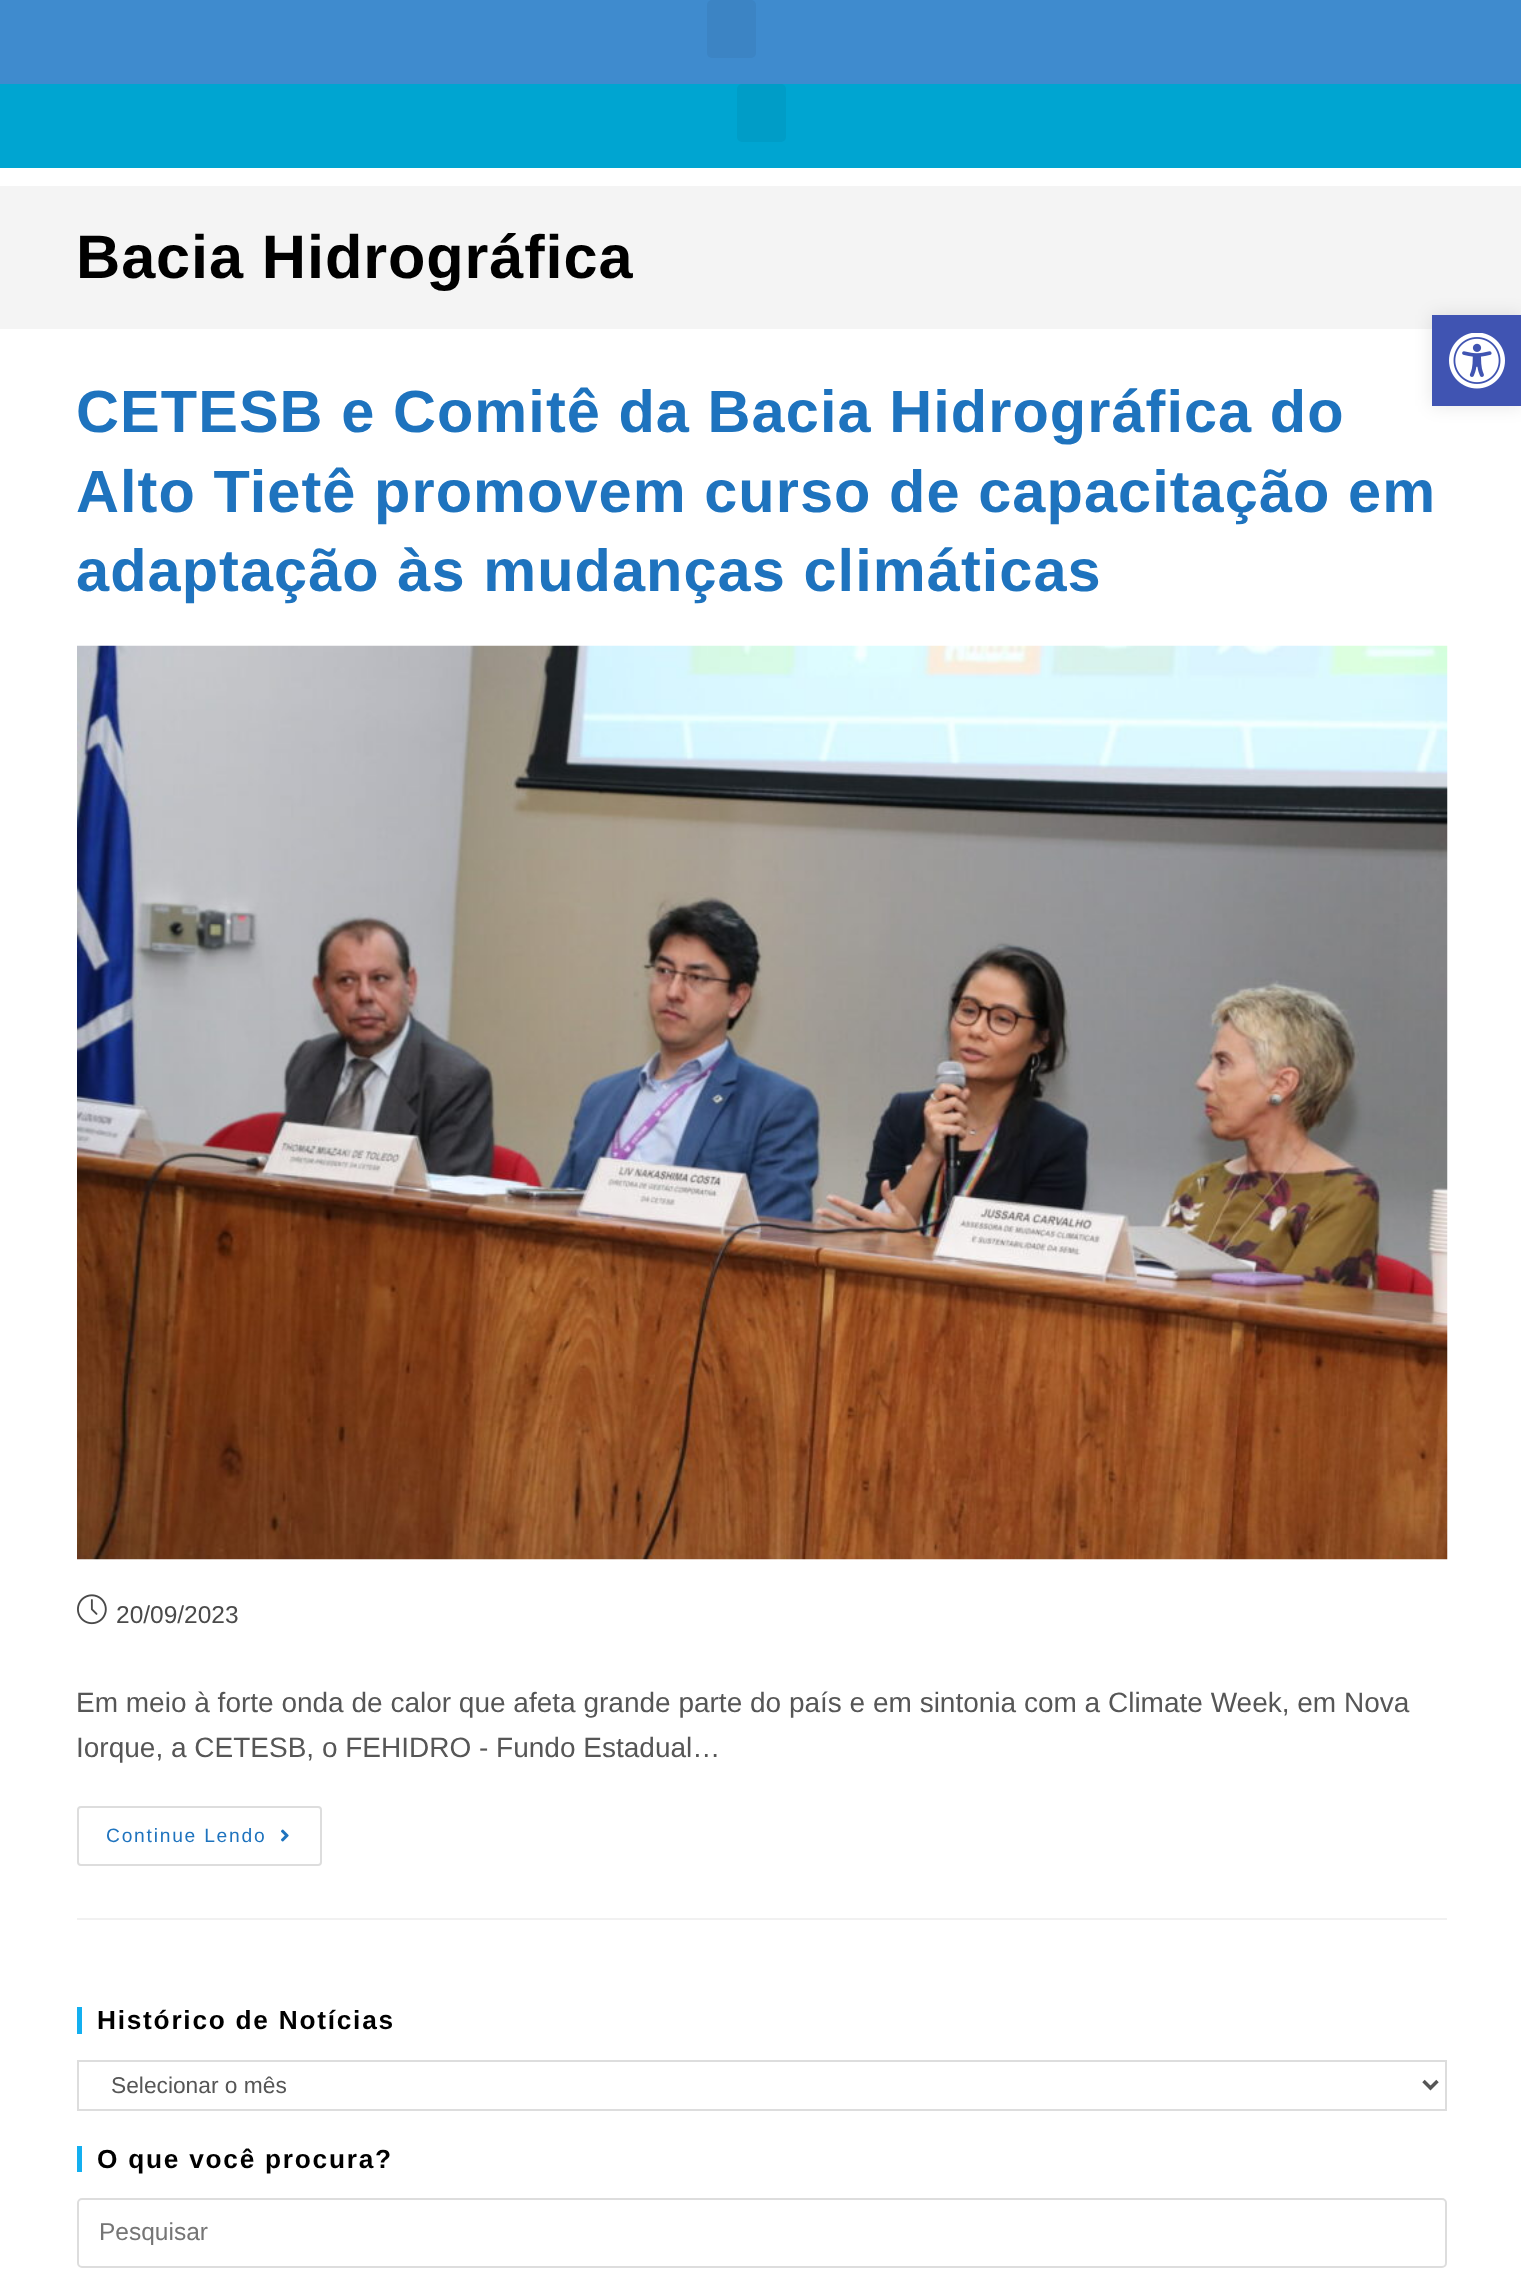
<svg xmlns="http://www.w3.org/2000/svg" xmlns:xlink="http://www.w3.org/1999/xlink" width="1521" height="2275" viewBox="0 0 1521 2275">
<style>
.cls-1{font:bold 61.25px Liberation Sans;letter-spacing:0.9px;fill:#000000}
.cls-2{font:bold 59.5px Liberation Sans;letter-spacing:1.05px;fill:#1e73be}
.cls-3{font:24.5px Liberation Sans;fill:#4a4a4a}
.cls-4{font:28px Liberation Sans;fill:#565656}
.cls-5{font:19.25px Liberation Sans;letter-spacing:1.75px;fill:#1e73be}
.cls-6{font:bold 26.25px Liberation Sans;letter-spacing:1.75px;fill:#000000}
.cls-7{font:22.75px Liberation Sans;fill:#565656}
.cls-8{font:24.5px Liberation Sans;fill:#757575}
</style>
<rect width="100%" height="100%" fill="#ffffff"/>
<rect fill="#3f8bce" x="0" y="0" width="1521" height="84"/>
<rect fill="#3c84c4" x="707" y="0" width="49" height="58" rx="5"/>
<rect fill="#00a5d1" x="0" y="84" width="1521" height="84"/>
<rect fill="#009dc7" x="737" y="84" width="49" height="58" rx="5"/>
<rect fill="#f4f4f4" x="0" y="186" width="1521" height="143"/>
<rect fill="#f1f1f1" x="77" y="1918" width="1370" height="2"/>
<image xlink:href="image0.png" x="77" y="645" width="1371" height="915"/>
<image xlink:href="image1.png" x="77" y="1594" width="30" height="31"/>
<rect fill="none" stroke="#dddddd" stroke-width="2" x="78" y="1807" width="243" height="58" rx="3"/>
<image xlink:href="image2.png" x="281" y="1829" width="8" height="13"/>
<rect fill="#13aff0" x="77" y="2007" width="5" height="27"/>
<rect fill="none" stroke="#dddddd" stroke-width="2" x="78" y="2061" width="1368" height="49"/>
<path fill="none" stroke="#565656" stroke-width="3.5" d="M1423.5 2081L1430.5 2088L1437.5 2081"/>
<rect fill="#13aff0" x="77" y="2146" width="5" height="26"/>
<rect fill="none" stroke="#dddddd" stroke-width="2" x="78" y="2199" width="1368" height="68" rx="4"/>
<rect fill="#000000" fill-opacity="0.1" filter="blur(9px)" x="1432" y="315" width="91" height="91"/>
<rect fill="#4054b2" x="1432" y="315" width="89" height="91"/>
<image xlink:href="image3.png" x="1449" y="333" width="56" height="56"/>
<text class="cls-1" x="76" y="278">Bacia Hidrográfica</text>
<text class="cls-2"><tspan x="76" y="432">CETESB e Comitê da Bacia Hidrográfica do</tspan><tspan x="76" y="512">Alto Tietê promovem curso de capacitação em</tspan><tspan x="76" y="591">adaptação às mudanças climáticas</tspan></text>
<text class="cls-3" x="116" y="1623">20/09/2023</text>
<text class="cls-4"><tspan x="76" y="1712">Em meio à forte onda de calor que afeta grande parte do país e em sintonia com a Climate Week, em Nova</tspan><tspan x="76" y="1757">Iorque, a CETESB, o FEHIDRO - Fundo Estadual…</tspan></text>
<text class="cls-5" x="106" y="1842">Continue Lendo</text>
<text class="cls-6" x="97" y="2029">Histórico de Notícias</text>
<text class="cls-7" x="111" y="2093">Selecionar o mês</text>
<text class="cls-6" x="97" y="2168">O que você procura?</text>
<text class="cls-8" x="99" y="2240">Pesquisar</text>
</svg>
